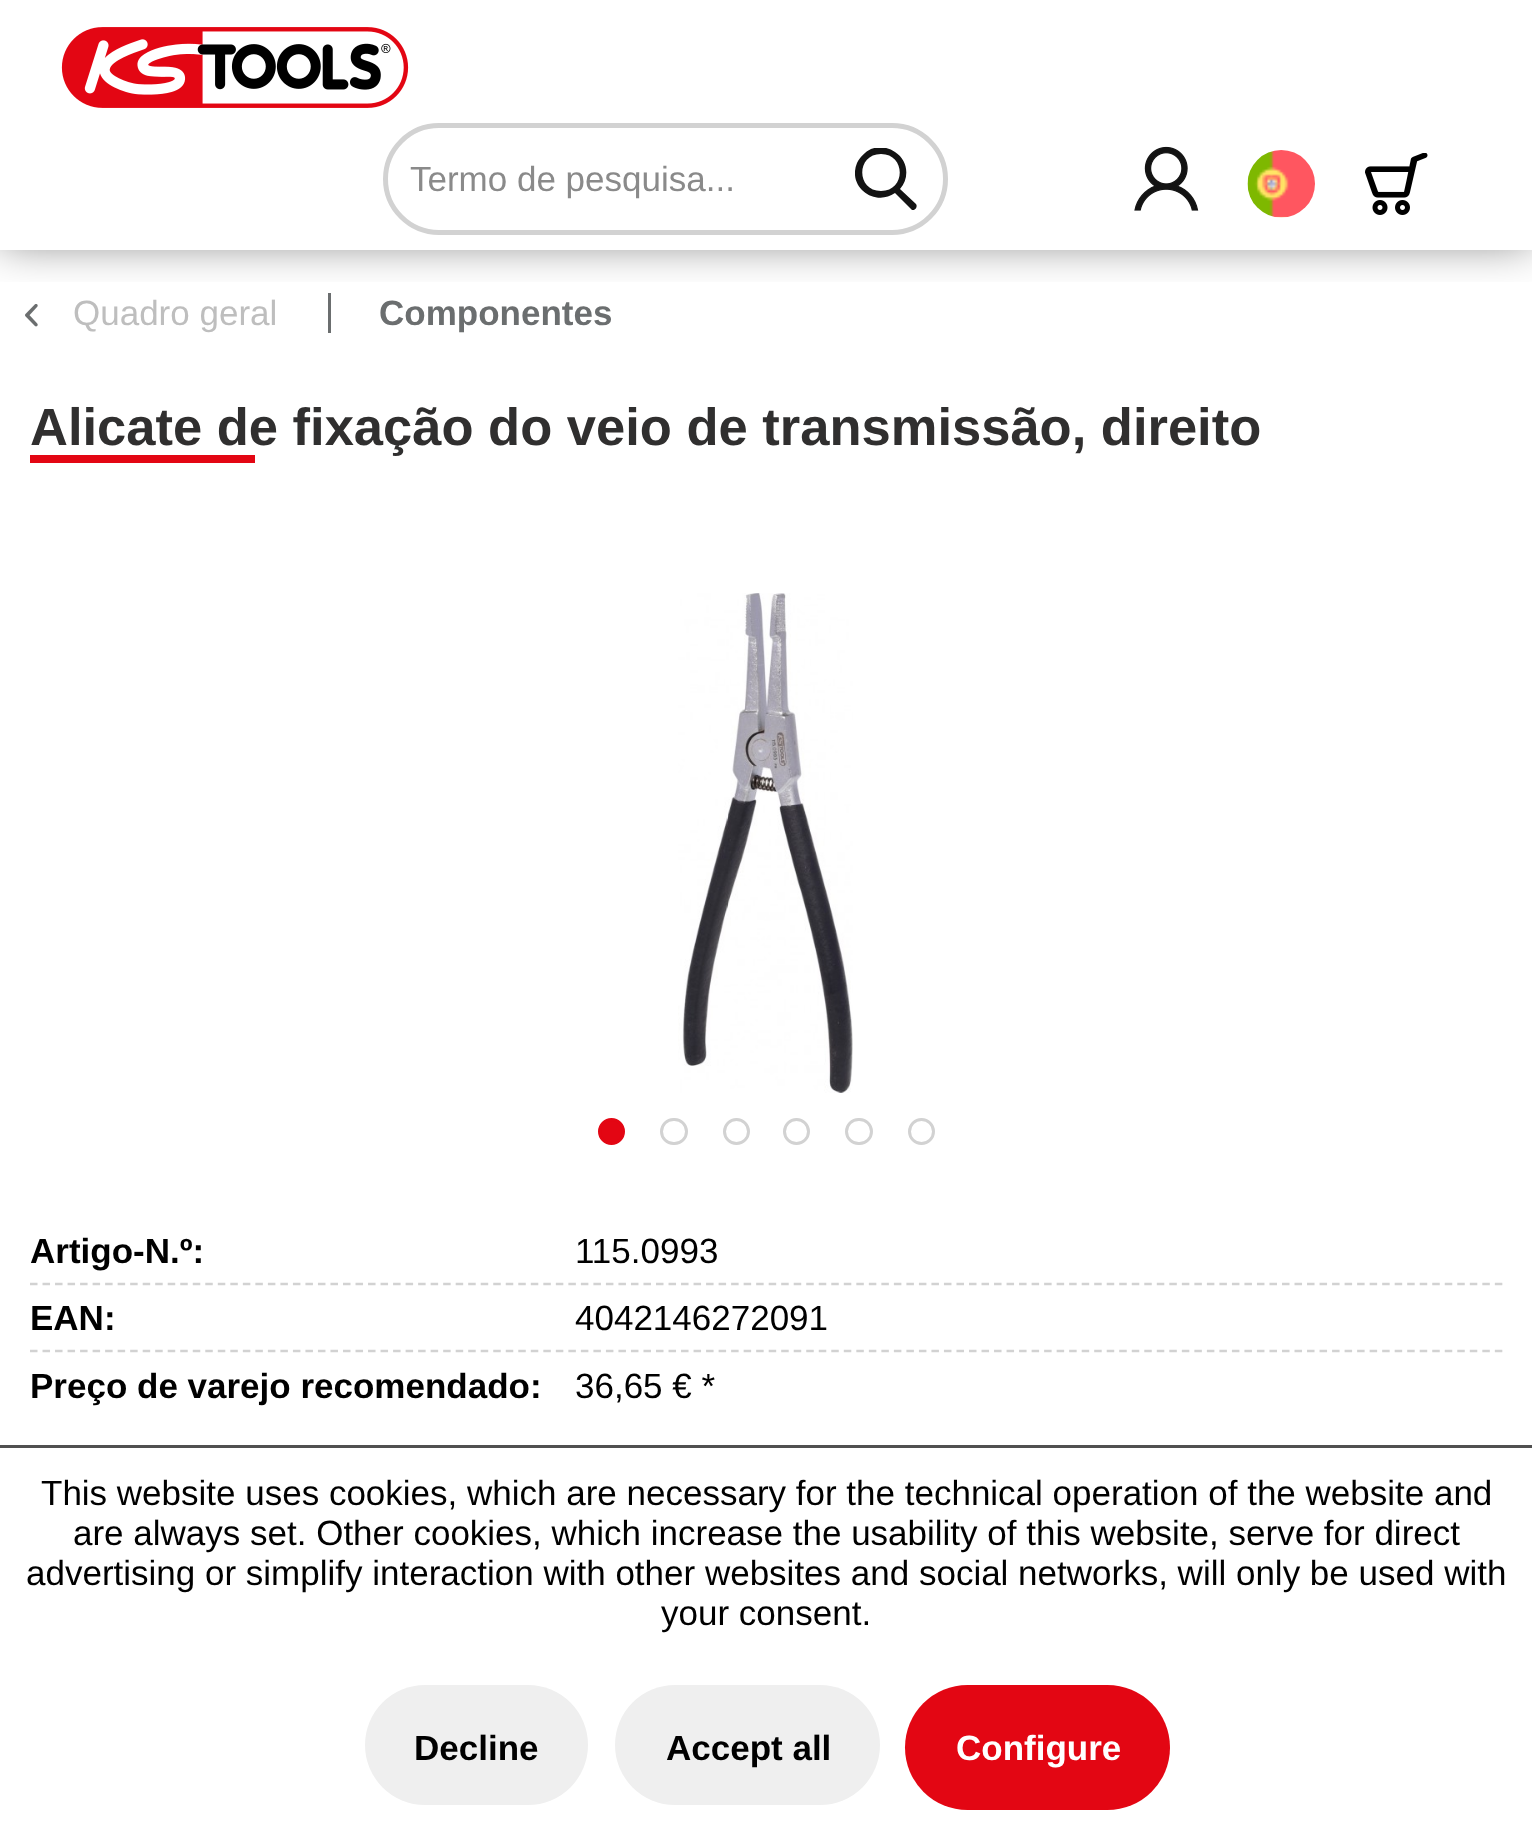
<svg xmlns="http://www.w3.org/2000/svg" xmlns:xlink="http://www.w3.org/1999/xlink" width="1532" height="1835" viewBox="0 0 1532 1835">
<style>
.cls-1{font:35px Liberation Sans;fill:#8a8a8a}
.cls-2{font:35px Liberation Sans;fill:#bebebe}
.cls-3{font:bold 35px Liberation Sans;fill:#6b6e6f}
.cls-4{font:bold 52.5px Liberation Sans;fill:#302f2f}
.cls-5{font:bold 35px Liberation Sans;fill:#000000}
.cls-6{font:35px Liberation Sans;fill:#000000}
.cls-7{font:bold 35px Liberation Sans;fill:#ffffff}
</style>
<defs>
<clipPath id="clip1"><rect x="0" y="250" width="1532" height="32"/></clipPath>
<clipPath id="clip2"><rect x="855" y="148" width="63" height="62"/></clipPath>
</defs>
<rect width="100%" height="100%" fill="#ffffff"/>
<image xlink:href="image4.png" x="25" y="304" width="13" height="23"/>
<rect fill="#6b6e6f" x="328" y="293" width="3" height="40"/>
<g clip-path="url(#clip1)">
<rect fill="#000000" fill-opacity="0.5" filter="blur(22.5px)" x="0" y="-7" width="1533" height="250"/>
</g>
<image xlink:href="image0.png" x="61" y="27" width="348" height="81"/>
<rect fill="none" stroke="#d2d2d2" stroke-width="5" x="385.5" y="125.5" width="560" height="107" rx="53.5"/>
<g clip-path="url(#clip2)">
<path fill="#131313" fill-rule="evenodd" d="M916 204L900 189C910 178 908 160 895 152C888 147 879 146 871 149C865 152 860 157 857 163C847 187 875 207 895 193L912 210C915 211 918 207 916 204ZM881 154C906 154 906 191 881 191C856 191 856 154 881 154Z"/>
</g>
<image xlink:href="image1.png" x="1134" y="146" width="65" height="65"/>
<image xlink:href="image2.png" x="1247" y="150" width="68" height="68"/>
<image xlink:href="image3.png" x="1365" y="153" width="63" height="62"/>
<image xlink:href="image5.png" x="678" y="593" width="175" height="500"/>
<circle fill="#e30613" stroke="#e30613" stroke-width="3" cx="611.5" cy="1131.5" r="12"/>
<rect fill="none" stroke="#d2d2d2" stroke-width="3" x="661.5" y="1119.5" width="25" height="24" rx="12"/>
<circle fill="none" stroke="#d2d2d2" stroke-width="3" cx="736.5" cy="1131.5" r="12"/>
<circle fill="none" stroke="#d2d2d2" stroke-width="3" cx="796.5" cy="1131.5" r="12"/>
<rect fill="none" stroke="#d2d2d2" stroke-width="3" x="846.5" y="1119.5" width="25" height="24" rx="12"/>
<circle fill="none" stroke="#d2d2d2" stroke-width="3" cx="921.5" cy="1131.5" r="12"/>
<path fill="none" stroke="#d2d2d2" stroke-width="2.5" stroke-dasharray="7.5 5.02" d="M30 1284H1502.5"/>
<path fill="none" stroke="#d2d2d2" stroke-width="2.5" stroke-dasharray="7.5 5.02" d="M30 1351H1502.5"/>
<rect fill="#505050" x="0" y="1445" width="1532" height="3"/>
<rect fill="#efefef" x="365" y="1685" width="223" height="120" rx="60"/>
<rect fill="#efefef" x="615" y="1685" width="265" height="120" rx="60"/>
<rect fill="#e30613" x="905" y="1685" width="265" height="125" rx="62.5"/>
<text class="cls-1" x="410" y="191">Termo de pesquisa...</text>
<text class="cls-2" x="73" y="325">Quadro geral</text>
<text class="cls-3" x="379" y="325">Componentes</text>
<text class="cls-4" x="30" y="445">Alicate de fixação do veio de transmissão, direito</text>
<rect fill="#e30613" x="30" y="455" width="225" height="8"/>
<text class="cls-5" x="30" y="1263">Artigo-N.º:</text>
<text class="cls-6" x="575" y="1263">115.0993</text>
<text class="cls-5" x="30" y="1330">EAN:</text>
<text class="cls-6" x="575" y="1330">4042146272091</text>
<text class="cls-5" x="30" y="1398">Preço de varejo recomendado:</text>
<text class="cls-6" x="575" y="1398">36,65 € *</text>
<text class="cls-6" x="41" y="1505">This website uses cookies, which are necessary for the technical operation of the website and</text>
<text class="cls-6" x="73" y="1545">are always set. Other cookies, which increase the usability of this website, serve for direct</text>
<text class="cls-6" x="26" y="1585">advertising or simplify interaction with other websites and social networks, will only be used with</text>
<text class="cls-6" x="661" y="1625">your consent.</text>
<text class="cls-5" x="414" y="1760">Decline</text>
<text class="cls-5" x="666" y="1760">Accept all</text>
<text class="cls-7" x="956" y="1760">Configure</text>
</svg>
